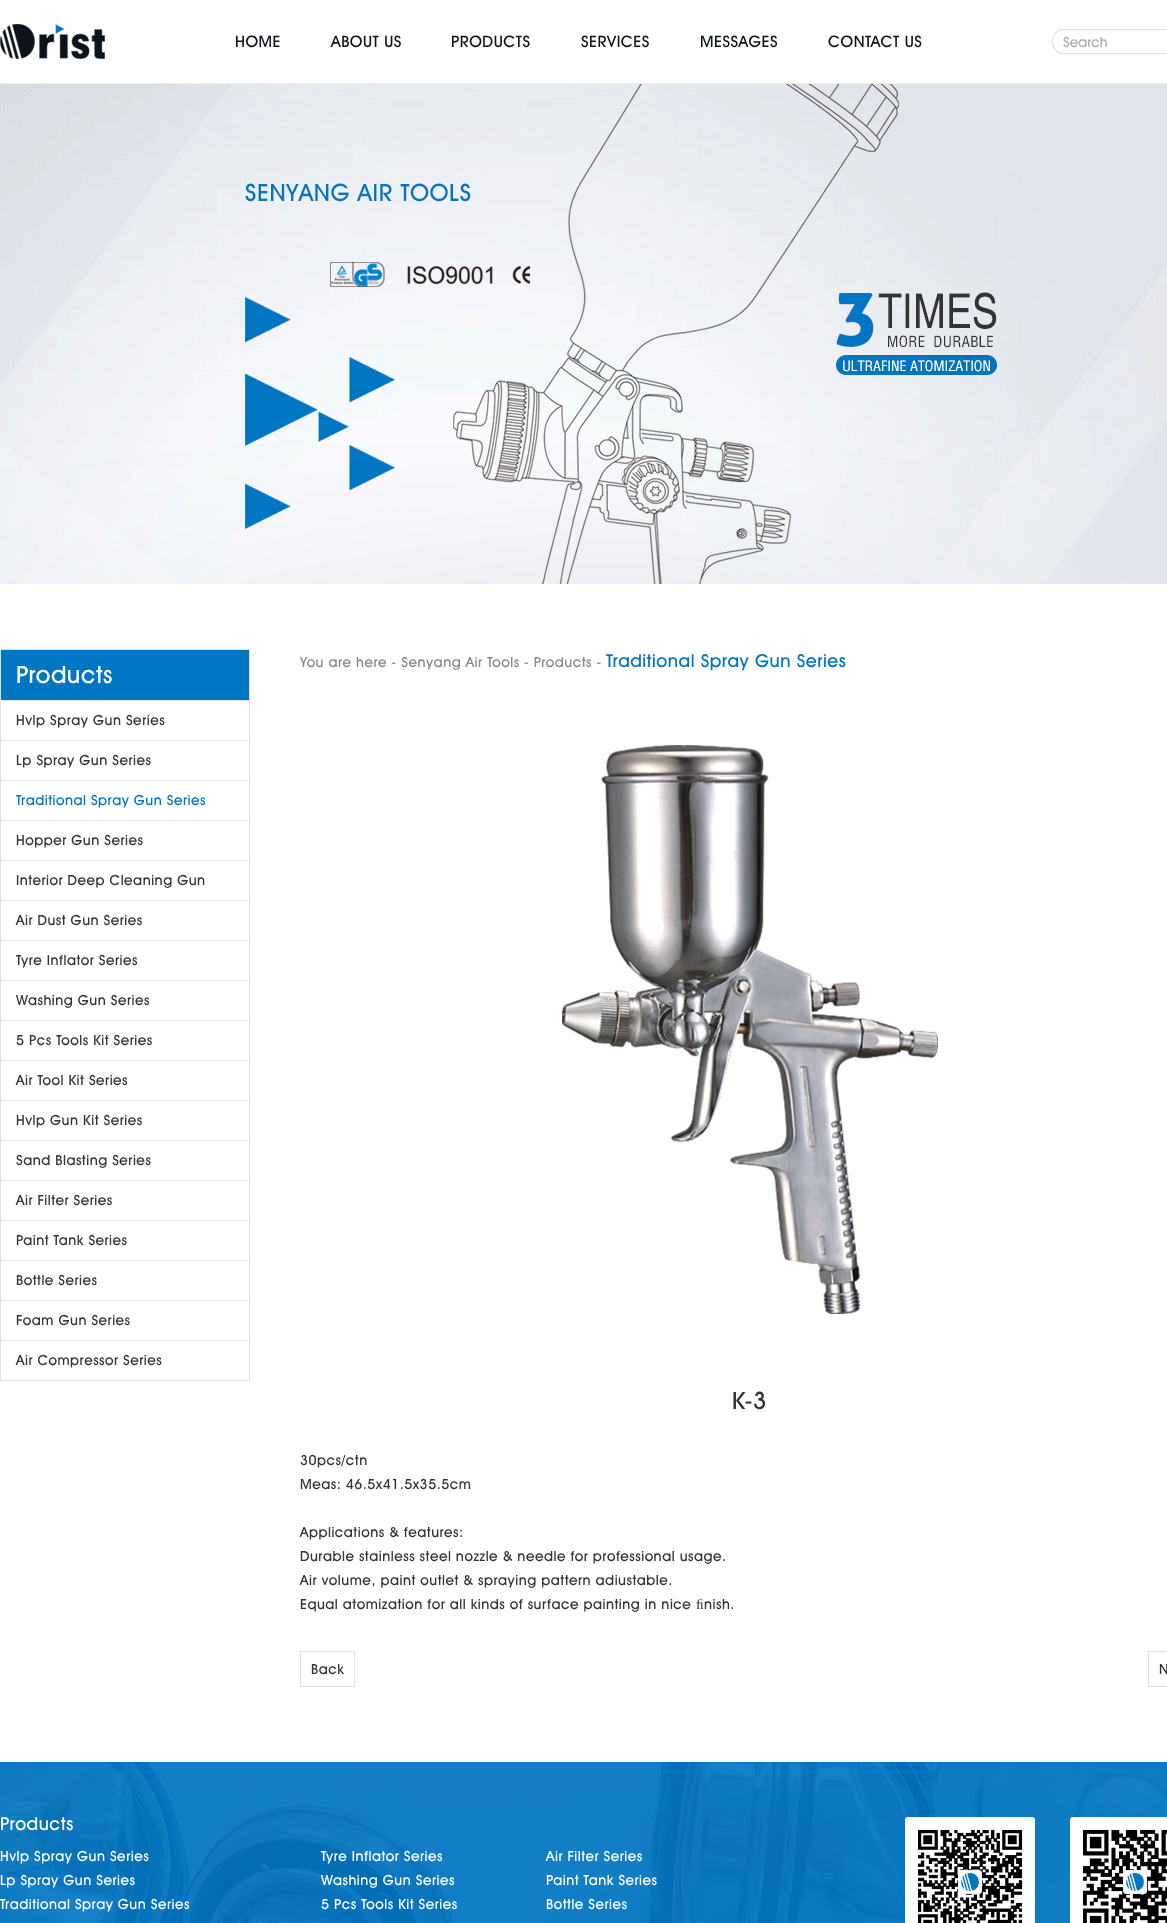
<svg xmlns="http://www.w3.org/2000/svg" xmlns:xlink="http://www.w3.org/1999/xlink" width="1167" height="1923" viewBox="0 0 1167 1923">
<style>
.cls-1{font:500 16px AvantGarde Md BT;letter-spacing:0.5px;fill:#0d131a}
.cls-2{font:500 14px AvantGarde Md BT;fill:#aeaeae}
.cls-3{font:500 24px AvantGarde Md BT;letter-spacing:0.5px;fill:#ffffff}
.cls-4{font:500 14px AvantGarde Md BT;letter-spacing:0.5px;fill:#333333}
.cls-5{font:500 14px AvantGarde Md BT;letter-spacing:0.5px;fill:#0075c2}
.cls-6{font:500 14px AvantGarde Md BT;letter-spacing:0.5px;fill:#888888}
.cls-7{font:500 18px AvantGarde Md BT;letter-spacing:0.5px;fill:#0075c2}
.cls-8{font:500 24px AvantGarde Md BT;letter-spacing:0.5px;fill:#333333}
.cls-9{font:14px Liberation Serif;letter-spacing:0.5px;fill:#333333}
.cls-10{font:500 18px AvantGarde Md BT;letter-spacing:0.5px;fill:#ffffff}
.cls-11{font:500 14px AvantGarde Md BT;letter-spacing:0.5px;fill:#ffffff}
</style>
<rect width="100%" height="100%" fill="#ffffff"/>
<rect fill="#eeeeee" x="0" y="83" width="1167" height="1"/>
<image xlink:href="image0.png" x="0" y="24" width="105" height="35"/>
<path fill="#e0e0e0" fill-rule="evenodd" d="M1064 29H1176V54H1062C1047 51 1050 29 1064 29ZM1064 30H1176V53H1064C1058 53 1053 48 1053 42C1053 35 1058 30 1064 30Z"/>
<image xlink:href="image1.png" x="0" y="84" width="1167" height="500"/>
<rect fill="none" stroke="#e0e0e0" x="0.5" y="649.5" width="249" height="731"/>
<rect fill="#0075c2" x="1" y="650" width="248" height="50"/>
<rect fill="#e5e5e5" x="1" y="700" width="248" height="1"/>
<rect fill="#e5e5e5" x="1" y="740" width="248" height="1"/>
<rect fill="#e5e5e5" x="1" y="780" width="248" height="1"/>
<rect fill="#e5e5e5" x="1" y="820" width="248" height="1"/>
<rect fill="#e5e5e5" x="1" y="860" width="248" height="1"/>
<rect fill="#e5e5e5" x="1" y="900" width="248" height="1"/>
<rect fill="#e5e5e5" x="1" y="940" width="248" height="1"/>
<rect fill="#e5e5e5" x="1" y="980" width="248" height="1"/>
<rect fill="#e5e5e5" x="1" y="1020" width="248" height="1"/>
<rect fill="#e5e5e5" x="1" y="1060" width="248" height="1"/>
<rect fill="#e5e5e5" x="1" y="1100" width="248" height="1"/>
<rect fill="#e5e5e5" x="1" y="1140" width="248" height="1"/>
<rect fill="#e5e5e5" x="1" y="1180" width="248" height="1"/>
<rect fill="#e5e5e5" x="1" y="1220" width="248" height="1"/>
<rect fill="#e5e5e5" x="1" y="1260" width="248" height="1"/>
<rect fill="#e5e5e5" x="1" y="1300" width="248" height="1"/>
<rect fill="#e5e5e5" x="1" y="1340" width="248" height="1"/>
<image xlink:href="image2.png" x="561" y="745" width="384" height="572"/>
<rect fill="none" stroke="#e0e0e0" x="300.5" y="1651.5" width="54" height="35"/>
<rect fill="none" stroke="#e0e0e0" x="1148.5" y="1651.5" width="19" height="35"/>
<image xlink:href="image3.png" x="0" y="1762" width="1167" height="161"/>
<rect fill="#ffffff" x="905" y="1817" width="130" height="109" rx="3"/>
<image xlink:href="image4.png" x="917" y="1829" width="106" height="94"/>
<rect fill="#ffffff" x="1070" y="1817" width="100" height="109" rx="3"/>
<image xlink:href="image5.png" x="1082" y="1829" width="85" height="94"/>
<text class="cls-1" x="235" y="47">HOME</text>
<text class="cls-1" x="331" y="47">ABOUT US</text>
<text class="cls-1" x="451" y="47">PRODUCTS</text>
<text class="cls-1" x="581" y="47">SERVICES</text>
<text class="cls-1" x="700" y="47">MESSAGES</text>
<text class="cls-1" x="828" y="47">CONTACT US</text>
<text class="cls-2" x="1063" y="47">Search</text>
<text class="cls-3" x="16" y="683">Products</text>
<text class="cls-4" x="16" y="725">Hvlp Spray Gun Series</text>
<text class="cls-4" x="16" y="765">Lp Spray Gun Series</text>
<text class="cls-5" x="16" y="805">Traditional Spray Gun Series</text>
<text class="cls-4" x="16" y="845">Hopper Gun Series</text>
<text class="cls-4" x="16" y="885">Interior Deep Cleaning Gun</text>
<text class="cls-4" x="16" y="925">Air Dust Gun Series</text>
<text class="cls-4" x="16" y="965">Tyre Inflator Series</text>
<text class="cls-4" x="16" y="1005">Washing Gun Series</text>
<text class="cls-4" x="16" y="1045">5 Pcs Tools Kit Series</text>
<text class="cls-4" x="16" y="1085">Air Tool Kit Series</text>
<text class="cls-4" x="16" y="1125">Hvlp Gun Kit Series</text>
<text class="cls-4" x="16" y="1165">Sand Blasting Series</text>
<text class="cls-4" x="16" y="1205">Air Filter Series</text>
<text class="cls-4" x="16" y="1245">Paint Tank Series</text>
<text class="cls-4" x="16" y="1285">Bottle Series</text>
<text class="cls-4" x="16" y="1325">Foam Gun Series</text>
<text class="cls-4" x="16" y="1365">Air Compressor Series</text>
<text class="cls-6" x="300" y="667">You are here - Senyang Air Tools - Products -</text>
<text class="cls-7" x="606" y="667">Traditional Spray Gun Series</text>
<text class="cls-8" x="732" y="1409">K-3</text>
<text class="cls-4"><tspan x="300" y="1465">30pcs/ctn</tspan><tspan x="300" y="1489">Meas: 46.5x41.5x35.5cm</tspan></text>
<text class="cls-4"><tspan x="300" y="1537">Applications &amp; features:</tspan><tspan x="300" y="1561">Durable stainless steel nozzle &amp; needle for professional usage.</tspan><tspan x="300" y="1585">Air volume, paint outlet &amp; spraying pattern adiustable.</tspan><tspan x="300" y="1609">Equal atomization for all kinds of surface painting in nice</tspan></text>
<text class="cls-9" x="696" y="1609">ﬁ</text>
<text class="cls-4" x="704" y="1609">nish.</text>
<text class="cls-4" x="311" y="1674">Back</text>
<text class="cls-4" x="1159" y="1674">N</text>
<text class="cls-10" x="0" y="1830">Products</text>
<text class="cls-11"><tspan x="0" y="1861">Hvlp Spray Gun Series</tspan><tspan x="0" y="1885">Lp Spray Gun Series</tspan><tspan x="0" y="1909">Traditional Spray Gun Series</tspan></text>
<text class="cls-11"><tspan x="321" y="1861">Tyre Inflator Series</tspan><tspan x="321" y="1885">Washing Gun Series</tspan><tspan x="321" y="1909">5 Pcs Tools Kit Series</tspan></text>
<text class="cls-11"><tspan x="546" y="1861">Air Filter Series</tspan><tspan x="546" y="1885">Paint Tank Series</tspan><tspan x="546" y="1909">Bottle Series</tspan></text>
</svg>
